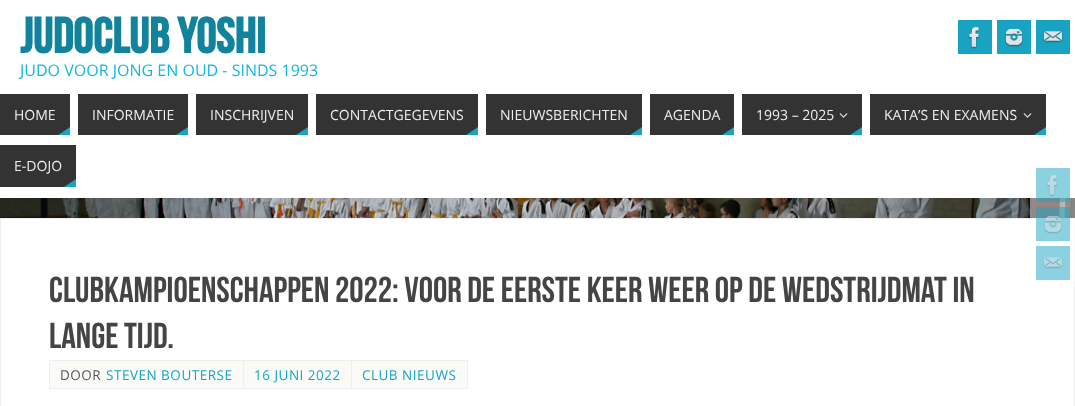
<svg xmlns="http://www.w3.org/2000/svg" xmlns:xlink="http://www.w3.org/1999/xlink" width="1075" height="406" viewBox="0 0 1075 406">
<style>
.cls-1{font:bold 50px Bebas Neue;fill:#11839d}
.cls-2{font:16px Open Sans;fill:#13b7dd}
.cls-3{font:14px Open Sans;fill:#eeeeee}
.cls-4{font:36px Bebas Neue;fill:#444444}
.cls-5{font:13.5px Open Sans;letter-spacing:0.5px;fill:#555555}
.cls-6{font:13.5px Open Sans;letter-spacing:0.5px;fill:#19a3c2}
</style>
<rect width="100%" height="100%" fill="#ffffff"/>
<image xlink:href="image0.png" x="0" y="198" width="1075" height="20"/>
<rect fill="#19a3c2" x="958" y="20" width="34" height="34"/>
<image xlink:href="image1.png" x="968" y="27" width="12" height="22"/>
<rect fill="#19a3c2" x="997" y="20" width="34" height="34"/>
<image xlink:href="image2.png" x="1005" y="29" width="18" height="18"/>
<rect fill="#19a3c2" x="1036" y="20" width="34" height="34"/>
<image xlink:href="image3.png" x="1043" y="31" width="20" height="12"/>
<rect fill="#333333" x="0" y="94" width="70" height="41"/>
<path fill="#19a3c2" d="M70 135H58L70 127Z"/>
<rect fill="#333333" x="78" y="94" width="110" height="41"/>
<path fill="#19a3c2" d="M188 135H176L188 127Z"/>
<rect fill="#333333" x="196" y="94" width="112" height="41"/>
<path fill="#19a3c2" d="M308 135H296L308 127Z"/>
<rect fill="#333333" x="316" y="94" width="162" height="41"/>
<path fill="#19a3c2" d="M478 135H466L478 127Z"/>
<rect fill="#333333" x="486" y="94" width="156" height="41"/>
<path fill="#19a3c2" d="M642 135H630L642 127Z"/>
<rect fill="#333333" x="650" y="94" width="84" height="41"/>
<path fill="#19a3c2" d="M734 135H722L734 127Z"/>
<rect fill="#333333" x="742" y="94" width="120" height="41"/>
<image xlink:href="image4.png" x="839" y="113" width="9" height="5"/>
<path fill="#19a3c2" d="M862 135H850L862 127Z"/>
<rect fill="#333333" x="870" y="94" width="176" height="41"/>
<image xlink:href="image4.png" x="1023" y="113" width="9" height="5"/>
<path fill="#19a3c2" d="M1046 135H1034L1046 127Z"/>
<rect fill="#333333" x="0" y="145" width="76" height="42"/>
<path fill="#19a3c2" d="M76 187H64L76 179Z"/>
<rect fill="none" stroke="#eeeeee" x="0.5" y="218.5" width="1074" height="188"/>
<rect fill="#ffffff" fill-opacity="0.5" x="1030" y="198" width="45" height="88"/>
<rect fill="#19a3c2" fill-opacity="0.5" x="1036" y="168" width="34" height="34"/>
<image xlink:href="image5.png" x="1046" y="175" width="12" height="22"/>
<rect fill="#19a3c2" fill-opacity="0.5" x="1036" y="207" width="34" height="34"/>
<image xlink:href="image6.png" x="1044" y="216" width="18" height="18"/>
<rect fill="#8cd1e1" x="1036" y="246" width="34" height="34"/>
<image xlink:href="image7.png" x="1043" y="257" width="20" height="12"/>
<rect fill="#fafaf7" stroke="#eeeeee" x="49.5" y="360.5" width="194" height="28"/>
<rect fill="#fafaf7" stroke="#eeeeee" x="243.5" y="360.5" width="108" height="28"/>
<rect fill="#fafaf7" stroke="#eeeeee" x="351.5" y="360.5" width="116" height="28"/>
<text class="cls-1" x="20" y="53">JUDOCLUB YOSHI</text>
<text class="cls-2" x="20" y="76">JUDO VOOR JONG EN OUD - SINDS 1993</text>
<text class="cls-3" x="14" y="120">HOME</text>
<text class="cls-3" x="92" y="120">INFORMATIE</text>
<text class="cls-3" x="210" y="120">INSCHRIJVEN</text>
<text class="cls-3" x="330" y="120">CONTACTGEGEVENS</text>
<text class="cls-3" x="500" y="120">NIEUWSBERICHTEN</text>
<text class="cls-3" x="664" y="120">AGENDA</text>
<text class="cls-3" x="756" y="120">1993 – 2025</text>
<text class="cls-3" x="884" y="120">KATA’S EN EXAMENS</text>
<text class="cls-3" x="14" y="171">E-DOJO</text>
<text class="cls-4"><tspan x="49" y="302">Clubkampioenschappen 2022: Voor de eerste keer weer op de wedstrijdmat in</tspan><tspan x="49" y="348">lange tijd.</tspan></text>
<text class="cls-5" x="60" y="380">DOOR</text>
<text class="cls-6" x="106" y="380">STEVEN BOUTERSE</text>
<text class="cls-6" x="254" y="380">16 JUNI 2022</text>
<text class="cls-6" x="362" y="380">CLUB NIEUWS</text>
</svg>
